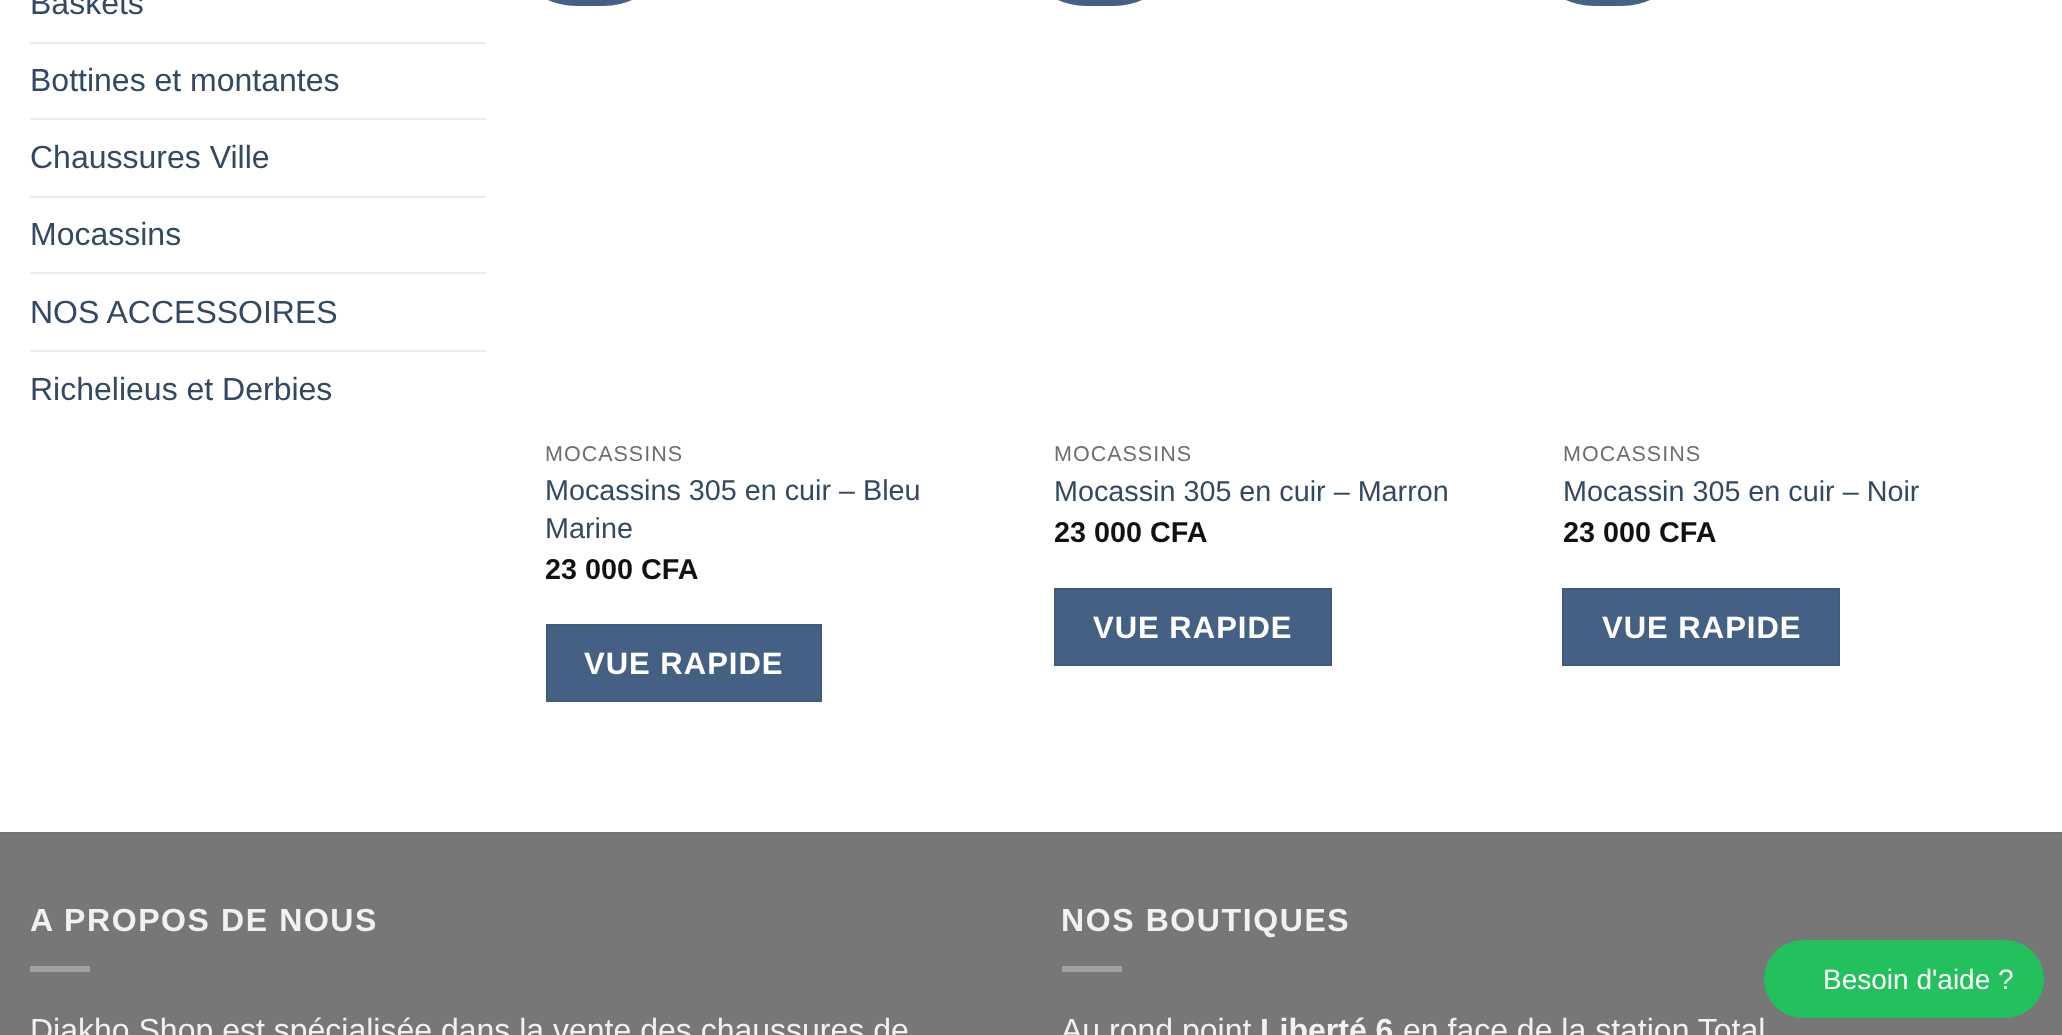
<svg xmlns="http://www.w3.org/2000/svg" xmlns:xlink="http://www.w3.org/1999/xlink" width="2062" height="1035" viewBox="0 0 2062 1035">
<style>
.cls-1{font:32px Liberation Sans;fill:#334862}
.cls-2{font:21.5px Liberation Sans;letter-spacing:1px;fill:#6e6e6e}
.cls-3{font:28.75px Liberation Sans;fill:#334862}
.cls-4{font:bold 28.75px Liberation Sans;fill:#111111}
.cls-5{font:bold 31px Liberation Sans;letter-spacing:1px;fill:#ffffff}
.cls-6{font:bold 32px Liberation Sans;letter-spacing:1.6px;fill:#f1f1f1}
.cls-7{font:32px Liberation Sans;fill:#f1f1f1}
.cls-8{font:bold 32px Liberation Sans;fill:#f1f1f1}
.cls-9{font:28px Liberation Sans;fill:#ffffff}
</style>
<rect width="100%" height="100%" fill="#ffffff"/>
<rect fill="#ececec" x="30" y="42" width="456" height="2"/>
<rect fill="#ececec" x="30" y="118" width="456" height="2"/>
<rect fill="#ececec" x="30" y="196" width="456" height="2"/>
<rect fill="#ececec" x="30" y="272" width="456" height="2"/>
<rect fill="#ececec" x="30" y="350" width="456" height="2"/>
<rect fill="#446084" x="532" y="-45" width="116" height="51" rx="45"/>
<rect fill="#446084" stroke="#415b7d" stroke-width="2" x="547" y="625" width="274" height="76"/>
<rect fill="#446084" x="1042" y="-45" width="116" height="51" rx="45"/>
<rect fill="#446084" stroke="#415b7d" stroke-width="2" x="1055" y="589" width="276" height="76"/>
<rect fill="#446084" x="1550" y="-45" width="116" height="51" rx="45"/>
<rect fill="#446084" stroke="#415b7d" stroke-width="2" x="1563" y="589" width="276" height="76"/>
<rect fill="#777777" x="0" y="834" width="2062" height="201"/>
<rect fill="#717171" x="0" y="832" width="2062" height="2"/>
<rect fill="#a0a0a0" x="30" y="966" width="60" height="6"/>
<rect fill="#a0a0a0" x="1062" y="966" width="60" height="6"/>
<rect fill="#22c15e" x="1764" y="940" width="280" height="78" rx="39"/>
<text class="cls-1" x="30" y="14">Baskets</text>
<text class="cls-1" x="30" y="91">Bottines et montantes</text>
<text class="cls-1" x="30" y="168">Chaussures Ville</text>
<text class="cls-1" x="30" y="245">Mocassins</text>
<text class="cls-1" x="30" y="323">NOS ACCESSOIRES</text>
<text class="cls-1" x="30" y="400">Richelieus et Derbies</text>
<text class="cls-2" x="545" y="461">MOCASSINS</text>
<text class="cls-3"><tspan x="545" y="500">Mocassins 305 en cuir – Bleu</tspan><tspan x="545" y="538">Marine</tspan></text>
<text class="cls-4" x="545" y="579">23 000 CFA</text>
<text class="cls-5" x="584" y="674">VUE RAPIDE</text>
<text class="cls-2" x="1054" y="461">MOCASSINS</text>
<text class="cls-3" x="1054" y="501">Mocassin 305 en cuir – Marron</text>
<text class="cls-4" x="1054" y="542">23 000 CFA</text>
<text class="cls-5" x="1093" y="638">VUE RAPIDE</text>
<text class="cls-2" x="1563" y="461">MOCASSINS</text>
<text class="cls-3" x="1563" y="501">Mocassin 305 en cuir – Noir</text>
<text class="cls-4" x="1563" y="542">23 000 CFA</text>
<text class="cls-5" x="1602" y="638">VUE RAPIDE</text>
<text class="cls-6" x="30" y="931">A PROPOS DE NOUS</text>
<text class="cls-7" x="30" y="1041">Diakho Shop est spécialisée dans la vente des chaussures de</text>
<text class="cls-6" x="1061" y="931">NOS BOUTIQUES</text>
<text class="cls-7" x="1061" y="1041">Au rond point</text>
<text class="cls-8" x="1260" y="1041">Liberté 6</text>
<text class="cls-7" x="1403" y="1041">en face de la station Total</text>
<text class="cls-9" x="1823" y="989">Besoin d'aide ?</text>
</svg>
